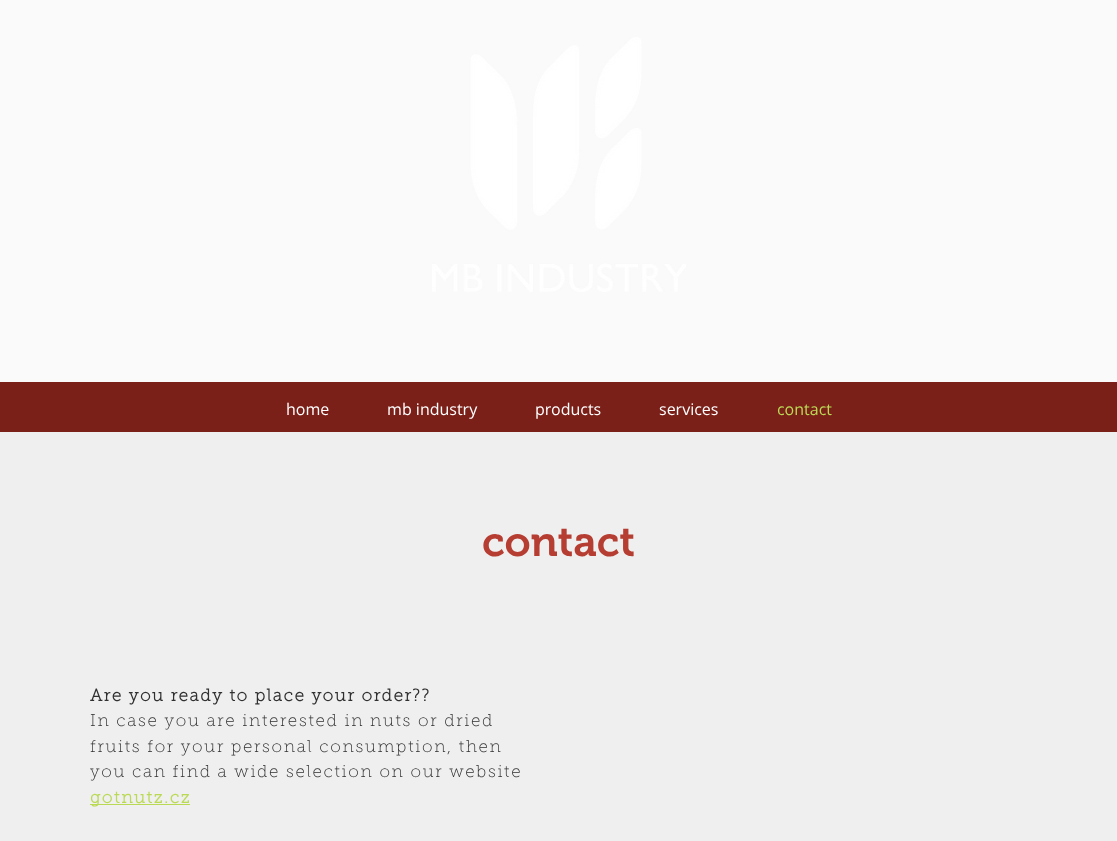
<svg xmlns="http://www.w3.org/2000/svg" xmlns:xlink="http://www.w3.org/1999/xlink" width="1117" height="841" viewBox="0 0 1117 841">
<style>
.cls-1{font:16px Open Sans;fill:#ffffff}
.cls-2{font:16px Open Sans;fill:#bada55}
.cls-3{font:600 42px 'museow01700';fill:#b63d32}
.cls-4{font:bold 17px 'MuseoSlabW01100';letter-spacing:1.7px;fill:#303030}
.cls-5{font:100 17px 'MuseoSlabW01100';letter-spacing:1.7px;fill:#303030}
.cls-6{font:bold 17px 'MuseoSlabW01100';letter-spacing:1.7px;fill:#bada55}
</style>
<rect width="100%" height="100%" fill="#efefef"/>
<rect fill="#fafafa" x="0" y="0" width="1117" height="382"/>
<image xlink:href="image0.png" x="432" y="37" width="254" height="255"/>
<rect fill="#7b2019" x="0" y="382" width="1117" height="50"/>
<rect fill="#bada55" x="90" y="804" width="100" height="1"/>
<text class="cls-1" x="286" y="415">home</text>
<text class="cls-1" x="387" y="415">mb industry</text>
<text class="cls-1" x="535" y="415">products</text>
<text class="cls-1" x="659" y="415">services</text>
<text class="cls-2" x="777" y="415">contact</text>
<text class="cls-3" x="482" y="556">contact</text>
<text class="cls-4" x="90" y="701">Are you ready to place your order??</text>
<text class="cls-5"><tspan x="90" y="726">In case you are interested in nuts or dried</tspan><tspan x="90" y="752">fruits for your personal consumption, then</tspan><tspan x="90" y="777">you can find a wide selection on our website</tspan></text>
<text class="cls-6" x="90" y="803">gotnutz.cz</text>
</svg>
